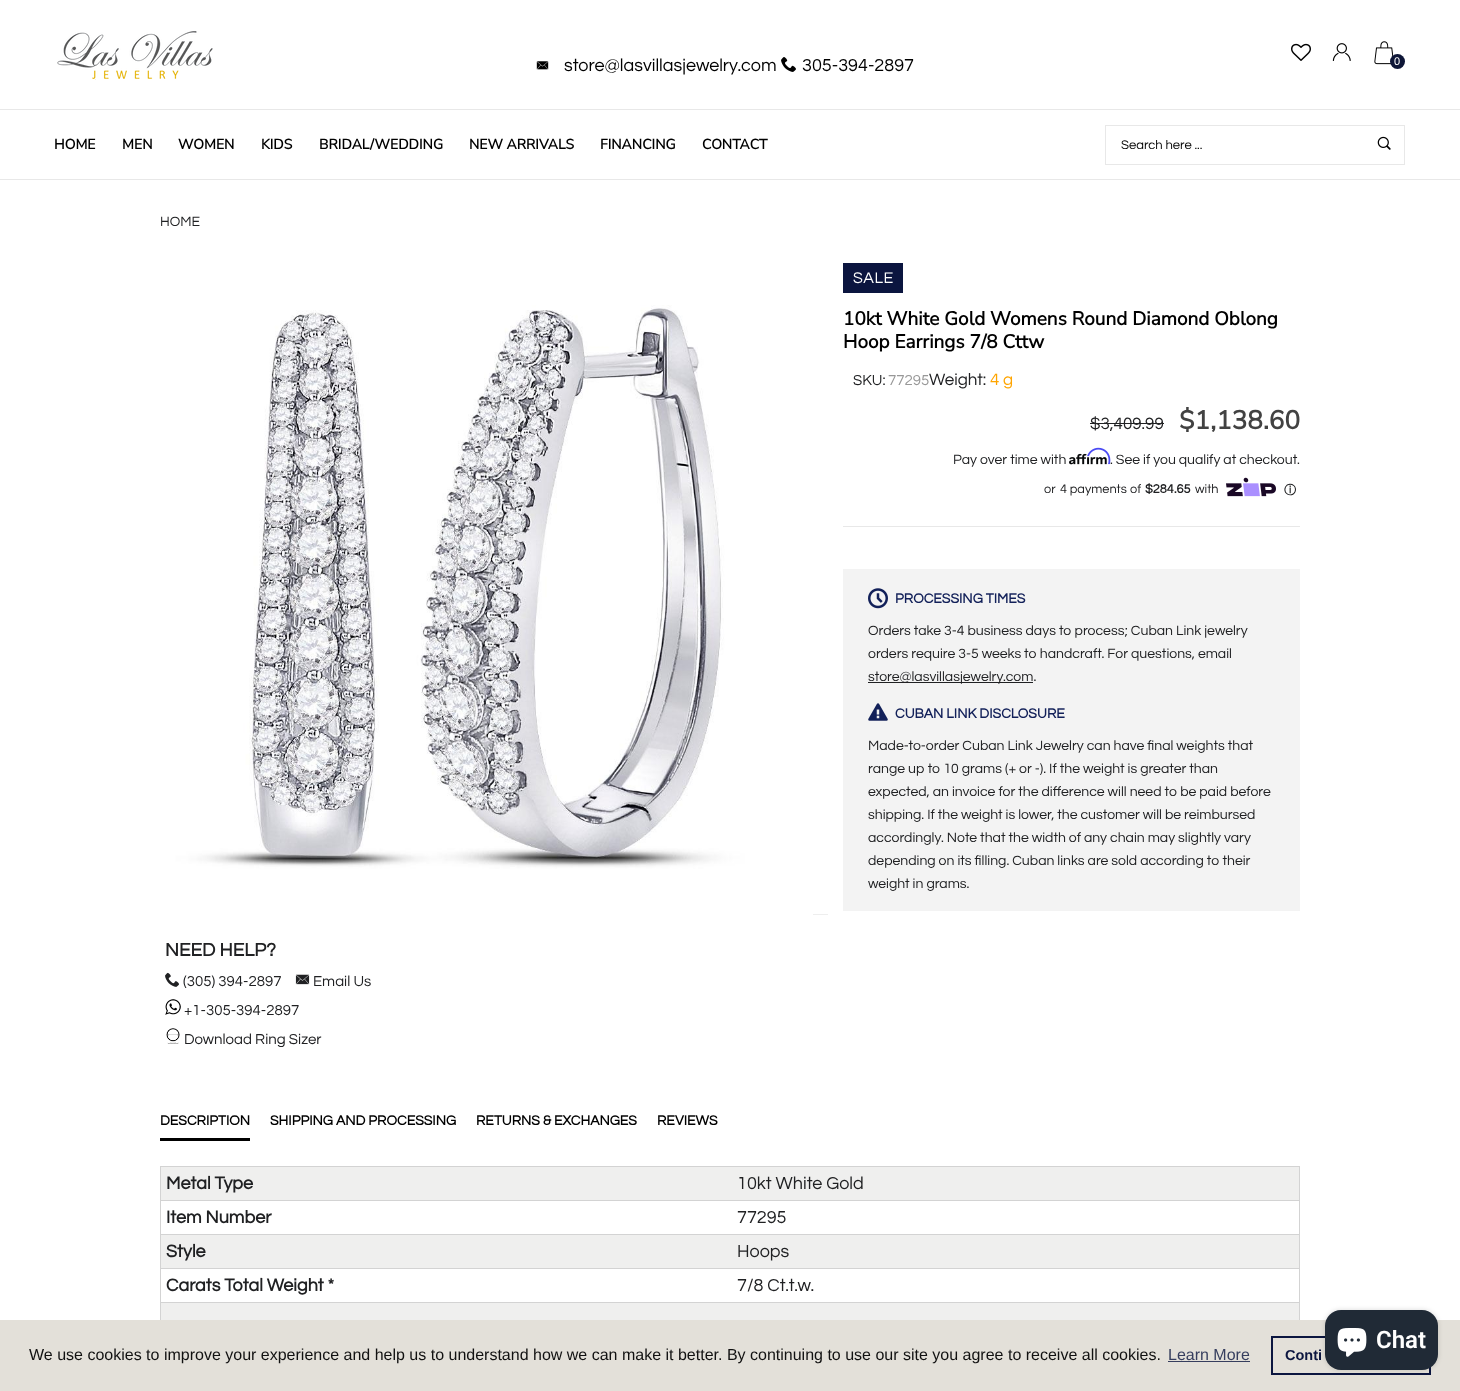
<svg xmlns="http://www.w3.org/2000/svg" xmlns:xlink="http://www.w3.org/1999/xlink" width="1460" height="1391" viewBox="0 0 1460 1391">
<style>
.cls-1{font:18px Questrial;fill:#000000}
.cls-2{font:11px Liberation Sans;fill:#ffffff}
.cls-3{font:bold 14px Nunito Sans;fill:#000000}
.cls-4{font:13px Questrial;fill:#000000}
.cls-5{font:14px Questrial;fill:#202123}
.cls-6{font:16px Questrial;letter-spacing:0.5px;fill:#ffffff}
.cls-7{font:bold 19px Nunito Sans;fill:#000000}
.cls-8{font:15px Questrial;fill:#202123}
.cls-9{font:15px Questrial;fill:#989898}
.cls-10{font:17px Questrial;fill:#202123}
.cls-11{font:17px Questrial;fill:#ffa500}
.cls-12{font:bold 26px Nunito Sans;fill:#424242}
.cls-13{font:12.75px Questrial;fill:#202123}
.cls-14{font:bold 12.75px Questrial;fill:#202123}
.cls-15{font:bold 12px WenQuanYi Zen Hei;fill:#202123}
.cls-16{font:bold 14px Questrial;fill:#122059}
.cls-17{font:bold 19px Questrial;fill:#202123}
.cls-18{font:bold 14px Questrial;fill:#000000}
.cls-19{font:bold 18px Questrial;fill:#202123}
.cls-20{font:18px Questrial;fill:#202123}
.cls-21{font:600 24px Roboto;fill:#ffffff}
.cls-22{font:16px Liberation Sans;fill:#111111}
.cls-23{font:16px Liberation Sans;fill:#363e5e}
.cls-24{font:bold 14.5px Liberation Sans;fill:#0b153f}
</style>
<rect width="100%" height="100%" fill="#ffffff"/>
<image xlink:href="image0.png" x="57" y="31" width="156" height="49"/>
<image xlink:href="image1.png" x="536" y="61" width="13" height="9"/>
<image xlink:href="image2.png" x="781" y="57" width="15" height="15"/>
<image xlink:href="image3.png" x="1291" y="43" width="20" height="18"/>
<image xlink:href="image4.png" x="1332" y="43" width="19" height="18"/>
<image xlink:href="image5.png" x="1374" y="41" width="20" height="24"/>
<circle fill="#0e1637" cx="1397.5" cy="61.5" r="7.5"/>
<rect fill="#e8e8e8" x="0" y="109" width="1460" height="1"/>
<rect fill="none" stroke="#e8e8e8" x="1105.5" y="125.5" width="299" height="39"/>
<image xlink:href="image6.png" x="1377" y="136" width="14" height="14"/>
<rect fill="#e8e8e8" x="0" y="179" width="1460" height="1"/>
<rect fill="#0b153f" x="843" y="263" width="60" height="30"/>
<rect fill="#202123" x="1090" y="423" width="74" height="1"/>
<image xlink:href="image8.png" x="1069" y="453" width="38" height="12"/>
<image xlink:href="image9.png" x="1226" y="477" width="50" height="20"/>
<rect fill="#e8e8e8" x="843" y="526" width="457" height="1"/>
<rect fill="#f3f3f3" x="843" y="569" width="457" height="342"/>
<image xlink:href="image10.png" x="868" y="588" width="20" height="21"/>
<rect fill="#202123" x="868" y="682" width="165" height="1"/>
<image xlink:href="image11.png" x="868" y="703" width="20" height="18"/>
<image xlink:href="image12.png" x="165" y="305" width="648" height="610"/>
<rect fill="#eeeeee" x="813" y="914" width="15" height="1"/>
<image xlink:href="image13.png" x="165" y="972" width="14" height="15"/>
<image xlink:href="image14.png" x="295" y="974" width="15" height="11"/>
<image xlink:href="image15.png" x="165" y="999" width="16" height="16"/>
<image xlink:href="image16.png" x="166" y="1028" width="14" height="16"/>
<rect fill="#000000" x="160" y="1138" width="90" height="3"/>
<rect fill="#d3d3d3" x="160" y="1166" width="1140" height="1"/>
<rect fill="#d3d3d3" x="1299" y="1166" width="1" height="154"/>
<rect fill="#d3d3d3" x="160" y="1166" width="1" height="154"/>
<rect fill="#efefee" x="161" y="1167" width="1138" height="33"/>
<rect fill="#d3d3d3" x="160" y="1200" width="1140" height="1"/>
<rect fill="#d3d3d3" x="160" y="1234" width="1140" height="1"/>
<rect fill="#efefee" x="161" y="1235" width="1138" height="33"/>
<rect fill="#d3d3d3" x="160" y="1268" width="1140" height="1"/>
<rect fill="#d3d3d3" x="160" y="1302" width="1140" height="1"/>
<rect fill="#efefee" x="161" y="1303" width="1138" height="17"/>
<rect fill="#e3e0d9" x="0" y="1320" width="1460" height="71"/>
<rect fill="none" stroke="#0b153f" stroke-width="2" x="1272" y="1337" width="158" height="37"/>
<rect fill="#000000" fill-opacity="0.15" filter="blur(2.5px)" x="1325" y="1310" width="113" height="60" rx="16"/>
<rect fill="#202a36" x="1325" y="1310" width="113" height="60" rx="16"/>
<image xlink:href="image17.png" x="1337" y="1328" width="30" height="29"/>
<rect fill="#363e5e" x="1168" y="1361" width="82" height="1"/>
<text class="cls-1" x="564" y="71">store@lasvillasjewelry.com</text>
<text class="cls-1" x="802" y="71">305-394-2897</text>
<text class="cls-2" x="1394" y="65">0</text>
<text class="cls-3" x="54" y="149">HOME</text>
<text class="cls-3" x="122" y="149">MEN</text>
<text class="cls-3" x="178" y="149">WOMEN</text>
<text class="cls-3" x="261" y="149">KIDS</text>
<text class="cls-3" x="319" y="149">BRIDAL/WEDDING</text>
<text class="cls-3" x="469" y="149">NEW ARRIVALS</text>
<text class="cls-3" x="600" y="149">FINANCING</text>
<text class="cls-3" x="702" y="149">CONTACT</text>
<text class="cls-4" x="1121" y="149">Search here ...</text>
<text class="cls-5" x="160" y="226">HOME</text>
<text class="cls-6" x="853" y="283">SALE</text>
<text class="cls-7"><tspan x="843" y="325">10kt White Gold Womens Round Diamond Oblong</tspan><tspan x="843" y="348">Hoop Earrings 7/8 Cttw</tspan></text>
<text class="cls-8" x="853" y="385">SKU:</text>
<text class="cls-9" x="888" y="385">77295</text>
<text class="cls-10" x="929" y="385">Weight:</text>
<text class="cls-11" x="990" y="385">4 g</text>
<text class="cls-10" x="1090" y="429">$3,409.99</text>
<text class="cls-12" x="1179" y="429">$1,138.60</text>
<text class="cls-5" x="953" y="464">Pay over time with</text>
<text class="cls-5" x="1110" y="464">. See if you qualify at checkout.</text>
<image xlink:href="image7.png" x="1087" y="447" width="24" height="18"/>
<text class="cls-13" x="1044" y="493">or</text>
<text class="cls-13" x="1060" y="493">4 payments</text>
<text class="cls-13" x="1130" y="493">of</text>
<text class="cls-14" x="1145" y="493">$284.65</text>
<text class="cls-13" x="1195" y="493">with</text>
<text class="cls-15" x="1284" y="494">ⓘ</text>
<text class="cls-16" x="895" y="603">PROCESSING TIMES</text>
<text class="cls-5"><tspan x="868" y="635">Orders take 3-4 business days to process; Cuban Link jewelry</tspan><tspan x="868" y="658">orders require 3-5 weeks to handcraft. For questions, email</tspan><tspan x="868" y="681">store@lasvillasjewelry.com.</tspan></text>
<text class="cls-16" x="895" y="718">CUBAN LINK DISCLOSURE</text>
<text class="cls-5"><tspan x="868" y="750">Made-to-order Cuban Link Jewelry can have final weights that</tspan><tspan x="868" y="773">range up to 10 grams (+ or -). If the weight is greater than</tspan><tspan x="868" y="796">expected, an invoice for the difference will need to be paid before</tspan><tspan x="868" y="819">shipping. If the weight is lower, the customer will be reimbursed</tspan><tspan x="868" y="842">accordingly. Note that the width of any chain may slightly vary</tspan><tspan x="868" y="865">depending on its filling. Cuban links are sold according to their</tspan><tspan x="868" y="888">weight in grams.</tspan></text>
<text class="cls-17" x="165" y="956">NEED HELP?</text>
<text class="cls-8" x="183" y="986">(305) 394-2897</text>
<text class="cls-8" x="313" y="986">Email Us</text>
<text class="cls-8"><tspan x="184" y="1015">+1-305-394-2897</tspan><tspan x="184" y="1044">Download Ring Sizer</tspan></text>
<text class="cls-18" x="160" y="1125">DESCRIPTION</text>
<text class="cls-18" x="270" y="1125">SHIPPING AND PROCESSING</text>
<text class="cls-18" x="476" y="1125">RETURNS &amp; EXCHANGES</text>
<text class="cls-18" x="657" y="1125">REVIEWS</text>
<text class="cls-19" x="166" y="1189">Metal Type</text>
<text class="cls-20" x="737" y="1189">10kt White Gold</text>
<text class="cls-19" x="166" y="1223">Item Number</text>
<text class="cls-20" x="737" y="1223">77295</text>
<text class="cls-19" x="166" y="1257">Style</text>
<text class="cls-20" x="737" y="1257">Hoops</text>
<text class="cls-19" x="166" y="1291">Carats Total Weight *</text>
<text class="cls-20" x="737" y="1291">7/8 Ct.t.w.</text>
<text class="cls-21" x="1376" y="1348">Chat</text>
<text class="cls-22" x="29" y="1360">We use cookies to improve your experience and help us to understand how we can make it better. By continuing to use our site you agree to receive all cookies.</text>
<text class="cls-23" x="1168" y="1360">Learn More</text>
<text class="cls-24" x="1285" y="1360">Conti</text>
</svg>
